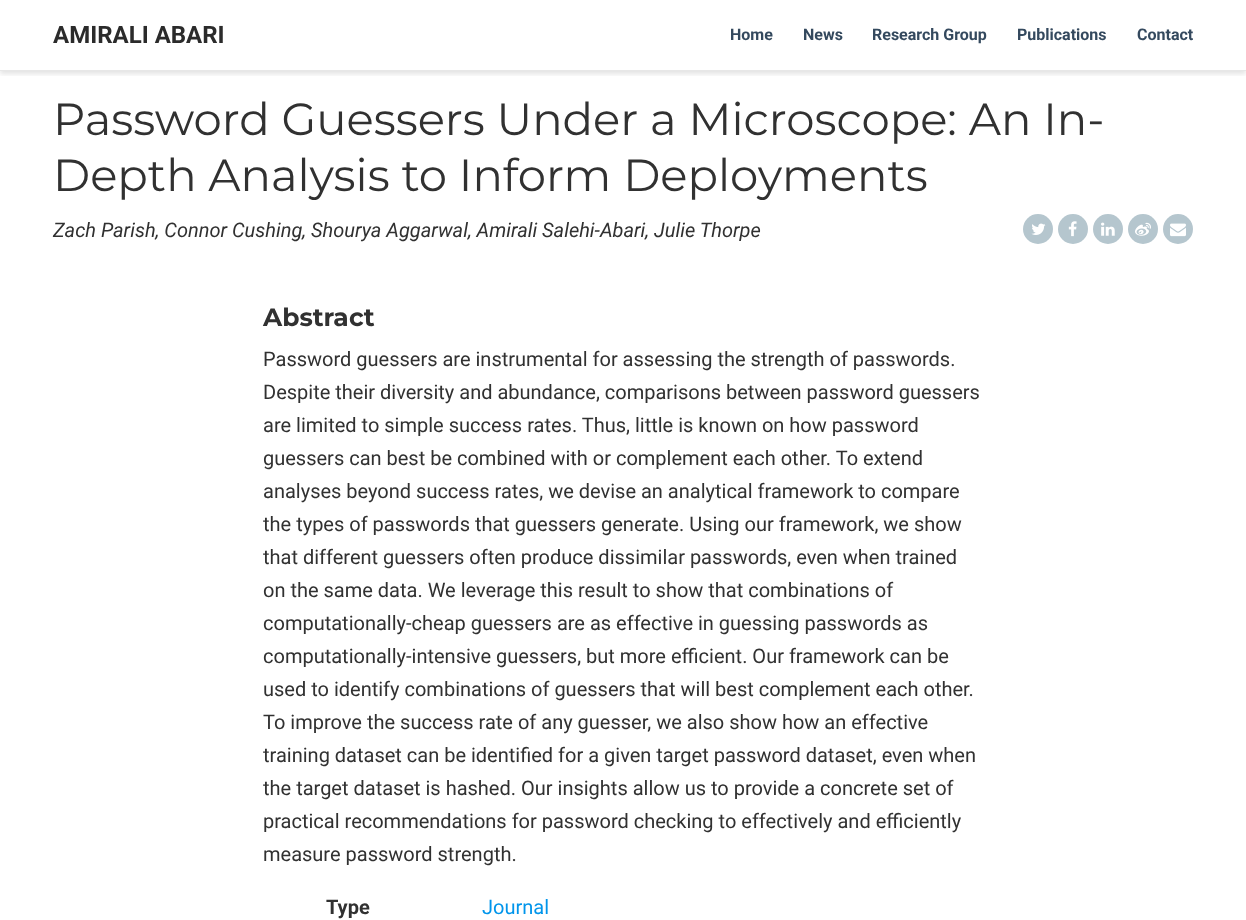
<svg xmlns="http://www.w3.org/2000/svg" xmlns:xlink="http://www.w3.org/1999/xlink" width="1246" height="920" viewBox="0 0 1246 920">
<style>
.cls-1{font:bold 24px Roboto;fill:#2b2b2b}
.cls-2{font:bold 16px Roboto;fill:#34495e}
.cls-3{font:45px Montserrat;fill:#313131}
.cls-4{font:italic 20px Roboto;fill:#313131}
.cls-5{font:bold 25px Montserrat;fill:#313131}
.cls-6{font:20px Roboto;fill:#313131}
.cls-7{font:bold 20px Roboto;fill:#313131}
.cls-8{font:20px Roboto;fill:#0095eb}
</style>
<defs>
<clipPath id="clip1"><rect x="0" y="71" width="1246" height="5"/></clipPath>
</defs>
<rect width="100%" height="100%" fill="#ffffff"/>
<g clip-path="url(#clip1)">
<rect fill="#000000" fill-opacity="0.11" filter="blur(2.5px)" x="0" y="3" width="1246" height="71"/>
</g>
<rect fill="#e7e7e7" x="0" y="70" width="1246" height="1"/>
<circle fill="#b5c6ce" cx="1038" cy="229" r="15"/>
<image xlink:href="image0.png" x="1031" y="223" width="15" height="12"/>
<circle fill="#b5c6ce" cx="1073" cy="229" r="15"/>
<image xlink:href="image1.png" x="1068" y="221" width="9" height="16"/>
<circle fill="#b5c6ce" cx="1108" cy="229" r="15"/>
<image xlink:href="image2.png" x="1101" y="222" width="14" height="14"/>
<circle fill="#b5c6ce" cx="1143" cy="229" r="15"/>
<image xlink:href="image3.png" x="1135" y="222" width="16" height="14"/>
<circle fill="#b5c6ce" cx="1178" cy="229" r="15"/>
<image xlink:href="image4.png" x="1170" y="223" width="16" height="14"/>
<text class="cls-1" x="53" y="43">AMIRALI ABARI</text>
<text class="cls-2" x="730" y="40">Home</text>
<text class="cls-2" x="803" y="40">News</text>
<text class="cls-2" x="872" y="40">Research Group</text>
<text class="cls-2" x="1017" y="40">Publications</text>
<text class="cls-2" x="1137" y="40">Contact</text>
<text class="cls-3"><tspan x="53" y="135">Password Guessers Under a Microscope: An In-</tspan><tspan x="53" y="191">Depth Analysis to Inform Deployments</tspan></text>
<text class="cls-4" x="53" y="237">Zach Parish, Connor Cushing, Shourya Aggarwal, Amirali Salehi-Abari, Julie Thorpe</text>
<text class="cls-5" x="263" y="326">Abstract</text>
<text class="cls-6"><tspan x="263" y="366">Password guessers are instrumental for assessing the strength of passwords.</tspan><tspan x="263" y="399">Despite their diversity and abundance, comparisons between password guessers</tspan><tspan x="263" y="432">are limited to simple success rates. Thus, little is known on how password</tspan><tspan x="263" y="465">guessers can best be combined with or complement each other. To extend</tspan><tspan x="263" y="498">analyses beyond success rates, we devise an analytical framework to compare</tspan><tspan x="263" y="531">the types of passwords that guessers generate. Using our framework, we show</tspan><tspan x="263" y="564">that different guessers often produce dissimilar passwords, even when trained</tspan><tspan x="263" y="597">on the same data. We leverage this result to show that combinations of</tspan><tspan x="263" y="630">computationally-cheap guessers are as effective in guessing passwords as</tspan><tspan x="263" y="663">computationally-intensive guessers, but more efficient. Our framework can be</tspan><tspan x="263" y="696">used to identify combinations of guessers that will best complement each other.</tspan><tspan x="263" y="729">To improve the success rate of any guesser, we also show how an effective</tspan><tspan x="263" y="762">training dataset can be identified for a given target password dataset, even when</tspan><tspan x="263" y="795">the target dataset is hashed. Our insights allow us to provide a concrete set of</tspan><tspan x="263" y="828">practical recommendations for password checking to effectively and efficiently</tspan><tspan x="263" y="861">measure password strength.</tspan></text>
<text class="cls-7" x="326" y="914">Type</text>
<text class="cls-8" x="482" y="914">Journal</text>
</svg>
